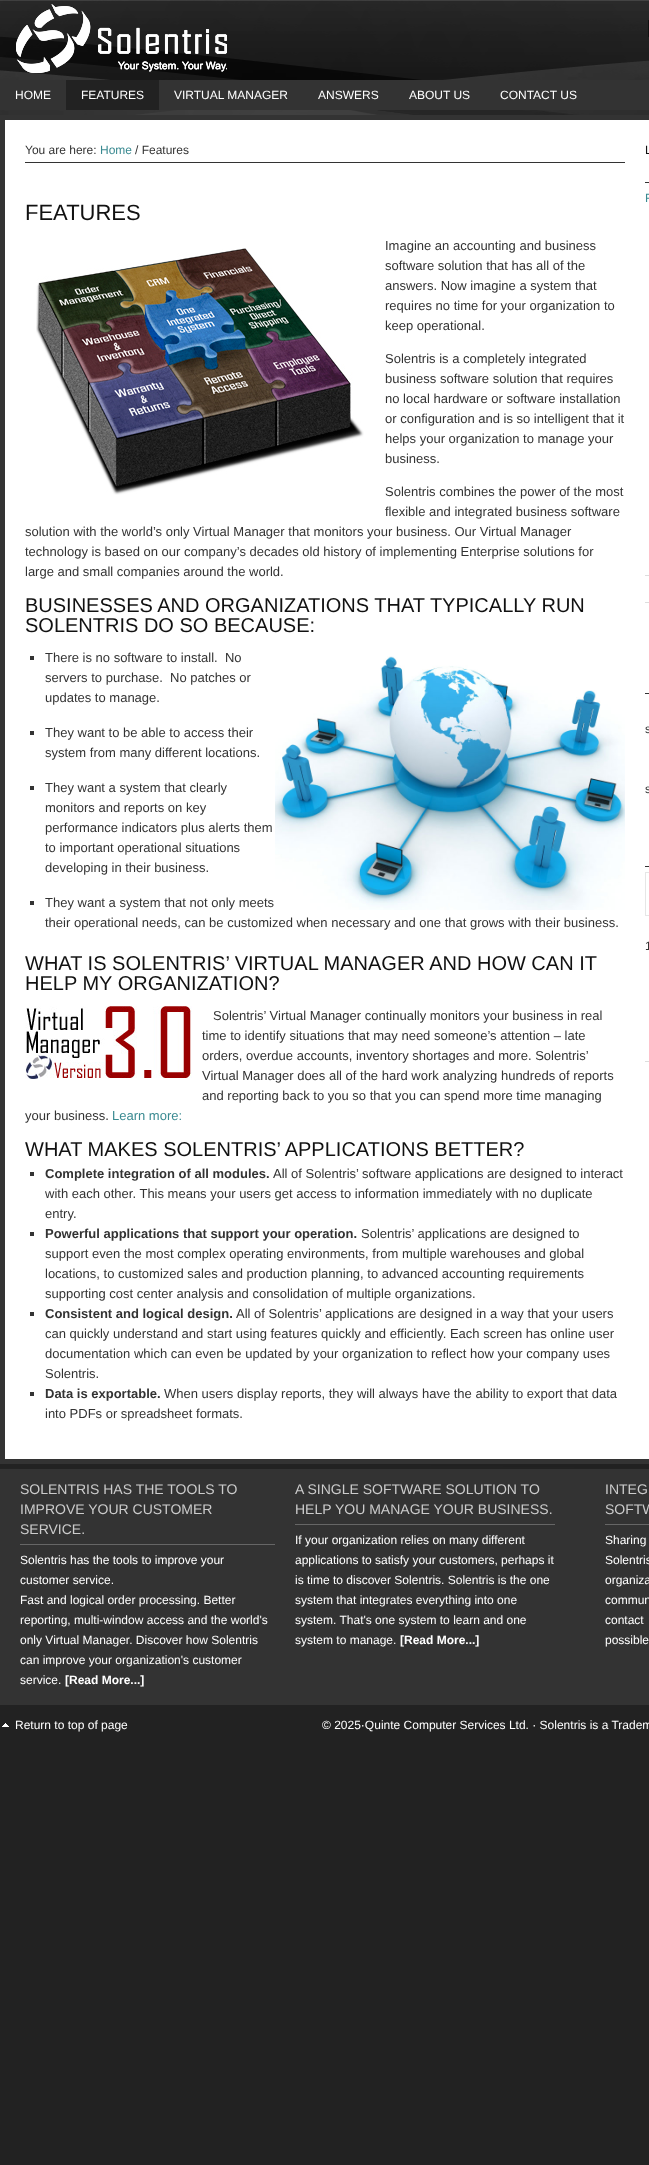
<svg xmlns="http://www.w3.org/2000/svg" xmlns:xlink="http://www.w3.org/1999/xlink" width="649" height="2165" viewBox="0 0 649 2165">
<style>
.cls-1{font:12px Liberation Sans;fill:#ffffff}
.cls-2{font:12px Liberation Sans;fill:#333333}
.cls-3{font:12px Liberation Sans;fill:#3a8a91}
.cls-4{font:22px Liberation Sans;fill:#111111}
.cls-5{font:13px Liberation Sans;fill:#333333}
.cls-6{font:20px Liberation Sans;fill:#111111}
.cls-7{font:13px Liberation Sans;fill:#3a8a91}
.cls-8{font:bold 13px Liberation Sans;fill:#333333}
.cls-9{font:12px Liberation Sans;fill:#111111}
.cls-10{font:14px Liberation Sans;fill:#cccccc}
.cls-11{font:bold 12px Liberation Sans;fill:#ffffff}
</style>
<rect width="100%" height="100%" fill="#222222"/>
<image xlink:href="image0.png" x="0" y="0" width="649" height="1469"/>
<image xlink:href="image1.png" x="16" y="4" width="211" height="69"/>
<image xlink:href="image2.png" x="16" y="4" width="211" height="69"/>
<image xlink:href="image3.png" x="16" y="4" width="211" height="69"/>
<rect fill="none" stroke="#111111" x="648.5" y="20.5" width="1" height="16"/>
<rect fill="#333333" x="0" y="80" width="649" height="30"/>
<rect fill="#222222" x="66" y="80" width="93" height="30"/>
<rect fill="#ffffff" stroke="#333333" stroke-width="5" x="2.5" y="117.5" width="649" height="1344"/>
<rect fill="#333333" x="25" y="162" width="600" height="1"/>
<image xlink:href="image4.png" x="36" y="248" width="328" height="247"/>
<rect fill="#333333" x="30" y="656" width="4" height="4"/>
<image xlink:href="image5.png" x="275" y="656" width="350" height="254"/>
<rect fill="#333333" x="30" y="731" width="4" height="4"/>
<rect fill="#333333" x="30" y="786" width="4" height="4"/>
<rect fill="#333333" x="30" y="901" width="4" height="4"/>
<image xlink:href="image6.png" x="25" y="1006" width="167" height="73"/>
<rect fill="#333333" x="30" y="1172" width="4" height="4"/>
<rect fill="#333333" x="30" y="1232" width="4" height="4"/>
<rect fill="#333333" x="30" y="1312" width="4" height="4"/>
<rect fill="#333333" x="30" y="1392" width="4" height="4"/>
<rect fill="#333333" x="645" y="182" width="4" height="1"/>
<rect fill="#dddddd" x="645" y="575" width="4" height="1"/>
<rect fill="#dddddd" x="645" y="602" width="4" height="1"/>
<rect fill="#333333" x="645" y="693" width="4" height="1"/>
<rect fill="#333333" x="645" y="866" width="4" height="1"/>
<rect fill="#dddddd" x="645" y="1061" width="4" height="1"/>
<rect fill="none" stroke="#e6e6e6" x="645.5" y="872.5" width="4" height="43"/>
<rect fill="#333333" x="0" y="1469" width="649" height="236"/>
<rect fill="#666666" x="20" y="1544" width="255" height="1"/>
<rect fill="#666666" x="295" y="1524" width="260" height="1"/>
<rect fill="#666666" x="605" y="1524" width="44" height="1"/>
<image xlink:href="image7.png" x="2" y="1723" width="7" height="4"/>
<text class="cls-1" x="15" y="99">HOME</text>
<text class="cls-1" x="81" y="99">FEATURES</text>
<text class="cls-1" x="174" y="99">VIRTUAL MANAGER</text>
<text class="cls-1" x="318" y="99">ANSWERS</text>
<text class="cls-1" x="409" y="99">ABOUT US</text>
<text class="cls-1" x="500" y="99">CONTACT US</text>
<text class="cls-2" x="25" y="154">You are here:</text>
<text class="cls-3" x="100" y="154">Home</text>
<text class="cls-2" x="135" y="154">/ Features</text>
<text class="cls-4" x="25" y="220">FEATURES</text>
<text class="cls-5"><tspan x="385" y="250">Imagine an accounting and business</tspan><tspan x="385" y="270">software solution that has all of the</tspan><tspan x="385" y="290">answers. Now imagine a system that</tspan><tspan x="385" y="310">requires no time for your organization to</tspan><tspan x="385" y="330">keep operational.</tspan></text>
<text class="cls-5"><tspan x="385" y="363">Solentris is a completely integrated</tspan><tspan x="385" y="383">business software solution that requires</tspan><tspan x="385" y="403">no local hardware or software installation</tspan><tspan x="385" y="423">or configuration and is so intelligent that it</tspan><tspan x="385" y="443">helps your organization to manage your</tspan><tspan x="385" y="463">business.</tspan></text>
<text class="cls-5"><tspan x="385" y="496">Solentris combines the power of the most</tspan><tspan x="385" y="516">flexible and integrated business software</tspan></text>
<text class="cls-5"><tspan x="25" y="536">solution with the world’s only Virtual Manager that monitors your business. Our Virtual Manager</tspan><tspan x="25" y="556">technology is based on our company’s decades old history of implementing Enterprise solutions for</tspan><tspan x="25" y="576">large and small companies around the world.</tspan></text>
<text class="cls-6"><tspan x="25" y="612">BUSINESSES AND ORGANIZATIONS THAT TYPICALLY RUN</tspan><tspan x="25" y="632">SOLENTRIS DO SO BECAUSE:</tspan></text>
<text class="cls-5" xml:space="preserve"><tspan x="45" y="662">There is no software to install.  No</tspan><tspan x="45" y="682">servers to purchase.  No patches or</tspan><tspan x="45" y="702">updates to manage.</tspan></text>
<text class="cls-5"><tspan x="45" y="737">They want to be able to access their</tspan><tspan x="45" y="757">system from many different locations.</tspan></text>
<text class="cls-5"><tspan x="45" y="792">They want a system that clearly</tspan><tspan x="45" y="812">monitors and reports on key</tspan><tspan x="45" y="832">performance indicators plus alerts them</tspan><tspan x="45" y="852">to important operational situations</tspan><tspan x="45" y="872">developing in their business.</tspan></text>
<text class="cls-5"><tspan x="45" y="907">They want a system that not only meets</tspan><tspan x="45" y="927">their operational needs, can be customized when necessary and one that grows with their business.</tspan></text>
<text class="cls-6"><tspan x="25" y="970">WHAT IS SOLENTRIS’ VIRTUAL MANAGER AND HOW CAN IT</tspan><tspan x="25" y="990">HELP MY ORGANIZATION?</tspan></text>
<text class="cls-5" x="213" y="1020">Solentris’ Virtual Manager continually monitors your business in real</text>
<text class="cls-5"><tspan x="202" y="1040">time to identify situations that may need someone’s attention – late</tspan><tspan x="202" y="1060">orders, overdue accounts, inventory shortages and more. Solentris’</tspan><tspan x="202" y="1080">Virtual Manager does all of the hard work analyzing hundreds of reports</tspan><tspan x="202" y="1100">and reporting back to you so that you can spend more time managing</tspan></text>
<text class="cls-5" x="25" y="1120">your business.</text>
<text class="cls-7" x="112" y="1120">Learn more:</text>
<text class="cls-6" x="25" y="1156">WHAT MAKES SOLENTRIS’ APPLICATIONS BETTER?</text>
<text class="cls-8" x="45" y="1178">Complete integration of all modules.</text>
<text class="cls-5" x="273" y="1178">All of Solentris’ software applications are designed to interact</text>
<text class="cls-5"><tspan x="45" y="1198">with each other. This means your users get access to information immediately with no duplicate</tspan><tspan x="45" y="1218">entry.</tspan></text>
<text class="cls-8" x="45" y="1238">Powerful applications that support your operation.</text>
<text class="cls-5" x="361" y="1238">Solentris’ applications are designed to</text>
<text class="cls-5"><tspan x="45" y="1258">support even the most complex operating environments, from multiple warehouses and global</tspan><tspan x="45" y="1278">locations, to customized sales and production planning, to advanced accounting requirements</tspan><tspan x="45" y="1298">supporting cost center analysis and consolidation of multiple organizations.</tspan></text>
<text class="cls-8" x="45" y="1318">Consistent and logical design.</text>
<text class="cls-5" x="236" y="1318">All of Solentris’ applications are designed in a way that your users</text>
<text class="cls-5"><tspan x="45" y="1338">can quickly understand and start using features quickly and efficiently. Each screen has online user</tspan><tspan x="45" y="1358">documentation which can even be updated by your organization to reflect how your company uses</tspan><tspan x="45" y="1378">Solentris.</tspan></text>
<text class="cls-8" x="45" y="1398">Data is exportable.</text>
<text class="cls-5" x="164" y="1398">When users display reports, they will always have the ability to export that data</text>
<text class="cls-5" x="45" y="1418">into PDFs or spreadsheet formats.</text>
<text class="cls-9" x="645" y="154">L</text>
<text class="cls-3" x="645" y="202">F</text>
<text class="cls-2" x="645" y="733">s</text>
<text class="cls-2" x="645" y="793">s</text>
<text class="cls-2" x="645" y="950">1</text>
<text class="cls-10"><tspan x="20" y="1494">SOLENTRIS HAS THE TOOLS TO</tspan><tspan x="20" y="1514">IMPROVE YOUR CUSTOMER</tspan><tspan x="20" y="1534">SERVICE.</tspan></text>
<text class="cls-1"><tspan x="20" y="1564">Solentris has the tools to improve your</tspan><tspan x="20" y="1584">customer service.</tspan><tspan x="20" y="1604">Fast and logical order processing. Better</tspan><tspan x="20" y="1624">reporting, multi-window access and the world's</tspan><tspan x="20" y="1644">only Virtual Manager. Discover how Solentris</tspan><tspan x="20" y="1664">can improve your organization's customer</tspan><tspan x="20" y="1684">service.</tspan></text>
<text class="cls-11" x="65" y="1684">[Read More...]</text>
<text class="cls-10"><tspan x="295" y="1494">A SINGLE SOFTWARE SOLUTION TO</tspan><tspan x="295" y="1514">HELP YOU MANAGE YOUR BUSINESS.</tspan></text>
<text class="cls-1"><tspan x="295" y="1544">If your organization relies on many different</tspan><tspan x="295" y="1564">applications to satisfy your customers, perhaps it</tspan><tspan x="295" y="1584">is time to discover Solentris. Solentris is the one</tspan><tspan x="295" y="1604">system that integrates everything into one</tspan><tspan x="295" y="1624">system. That's one system to learn and one</tspan><tspan x="295" y="1644">system to manage.</tspan></text>
<text class="cls-11" x="400" y="1644">[Read More...]</text>
<text class="cls-10"><tspan x="605" y="1494">INTEG</tspan><tspan x="605" y="1514">SOFTW</tspan></text>
<text class="cls-1"><tspan x="605" y="1544">Sharing</tspan><tspan x="605" y="1564">Solentris</tspan><tspan x="605" y="1584">organiza</tspan><tspan x="605" y="1604">commun</tspan><tspan x="605" y="1624">contact</tspan><tspan x="605" y="1644">possible</tspan></text>
<text class="cls-1" x="15" y="1729">Return to top of page</text>
<text class="cls-1" x="322" y="1729">© 2025·Quinte Computer Services Ltd. · Solentris is a Tradem</text>
</svg>
